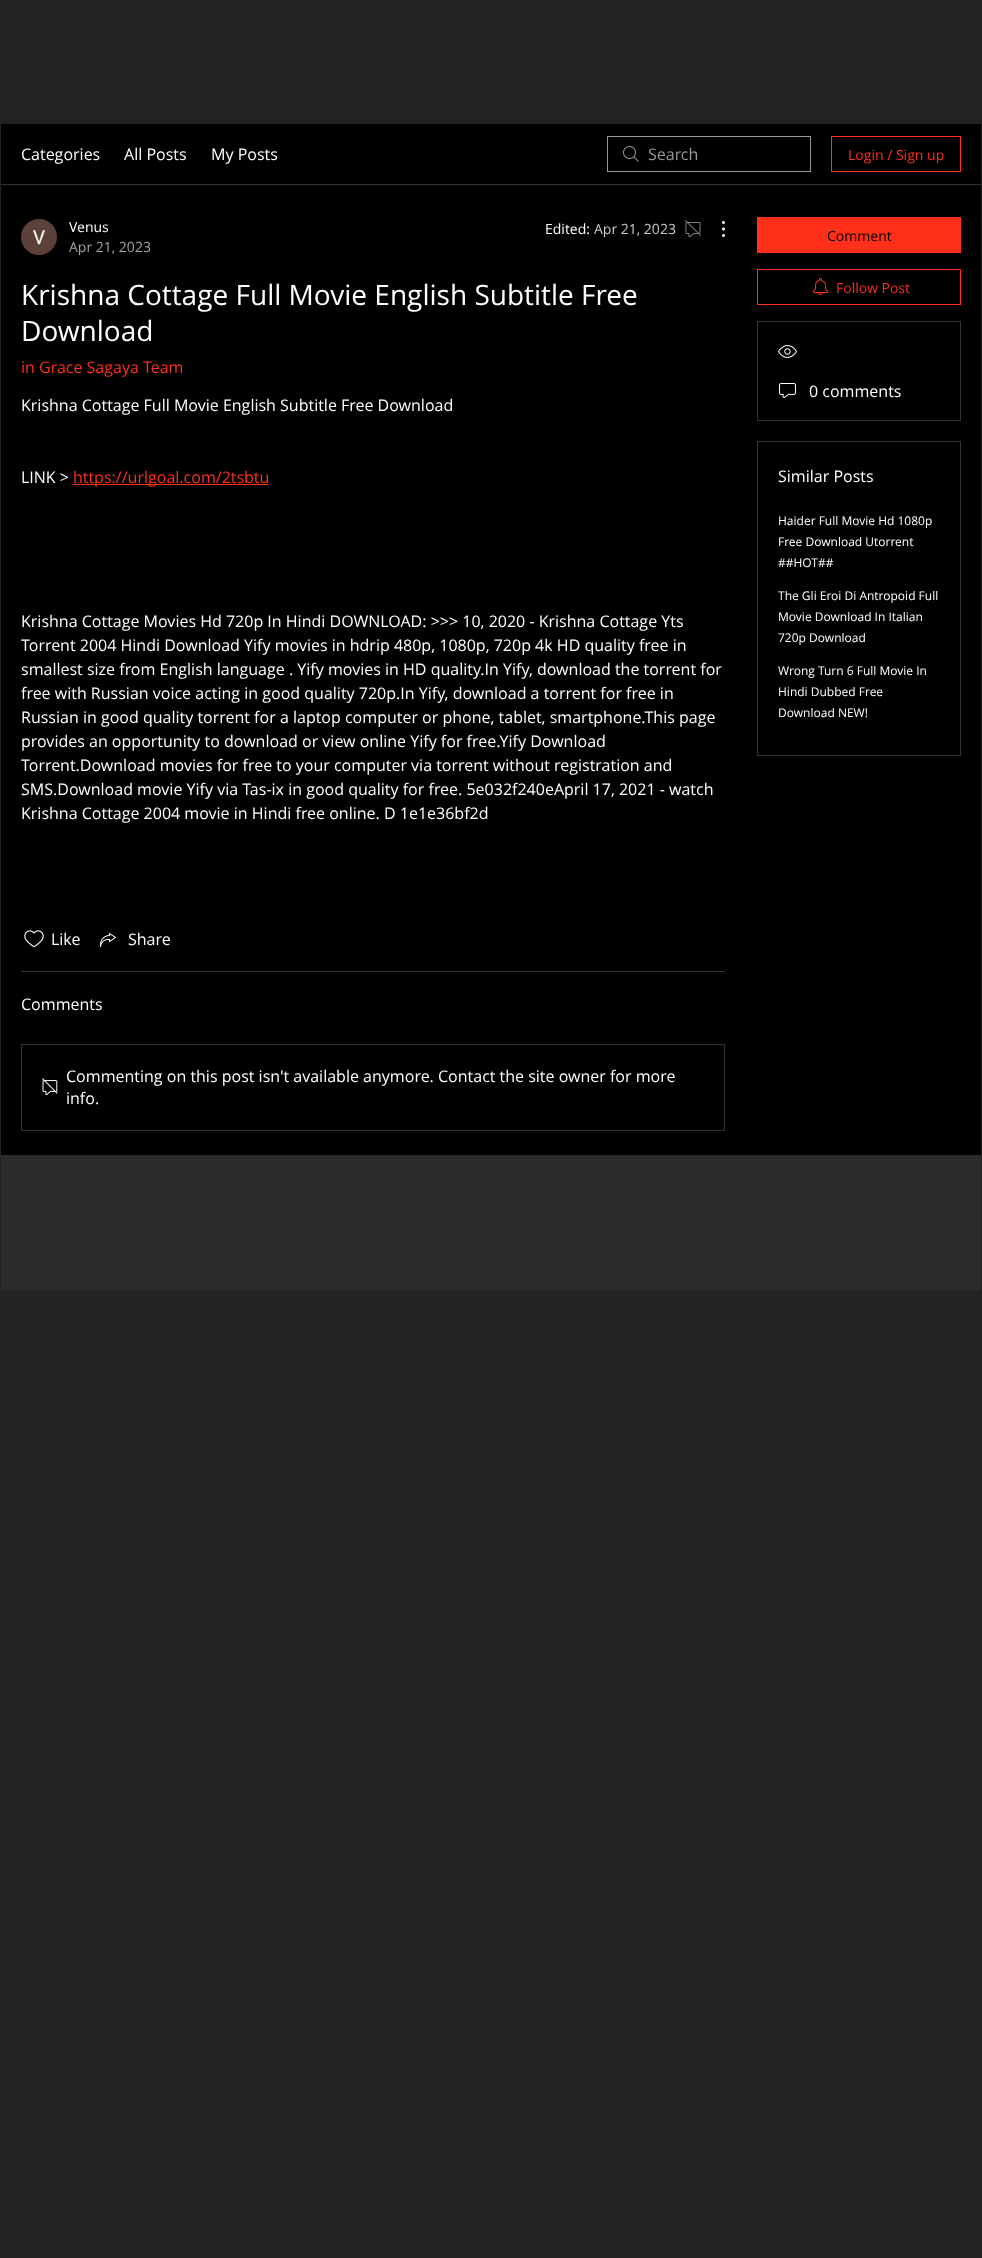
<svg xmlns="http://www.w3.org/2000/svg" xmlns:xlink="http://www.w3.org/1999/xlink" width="982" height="2258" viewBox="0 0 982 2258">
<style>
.cls-1{font:16px Open Sans;fill:#ffffff}
.cls-2{font:16px Open Sans;fill:#999999}
.cls-3{font:14px Open Sans;fill:#ff2f19}
.cls-4{font:14px Open Sans;fill:#ffffff}
.cls-5{font:14px Open Sans;fill:#a3a3a3}
.cls-6{font:14px Open Sans;fill:#cccccc}
.cls-7{font:28px Open Sans;fill:#ffffff}
.cls-8{font:16px Open Sans;fill:#ff2f19}
.cls-9{font:14px Open Sans;fill:#000000}
.cls-10{font:12px Open Sans;fill:#ffffff}
</style>
<rect width="100%" height="100%" fill="#232323"/>
<rect fill="#000000" x="1" y="124" width="980" height="1031"/>
<rect fill="#333333" x="1" y="184" width="980" height="1"/>
<image xlink:href="image0.png" x="623" y="146" width="16" height="16"/>
<rect fill="none" stroke="#999999" x="607.5" y="136.5" width="203" height="35"/>
<rect fill="none" stroke="#ff2f19" x="831.5" y="136.5" width="129" height="35"/>
<image xlink:href="image1.png" x="21" y="219" width="36" height="36"/>
<image xlink:href="image2.png" x="685" y="220" width="16" height="18"/>
<image xlink:href="image3.png" x="722" y="221" width="3" height="16"/>
<rect fill="#ff2f19" x="73" y="484" width="196" height="1"/>
<image xlink:href="image4.png" x="24" y="930" width="20" height="18"/>
<image xlink:href="image5.png" x="100" y="933" width="16" height="14"/>
<rect fill="#333333" x="21" y="971" width="704" height="1"/>
<rect fill="none" stroke="#333333" x="21.5" y="1044.5" width="703" height="86"/>
<image xlink:href="image6.png" x="42" y="1078" width="16" height="18"/>
<rect fill="#ff2f19" x="757" y="217" width="204" height="36"/>
<rect fill="none" stroke="#ff2f19" x="757.5" y="269.5" width="203" height="35"/>
<image xlink:href="image7.png" x="813" y="278" width="15" height="17"/>
<rect fill="none" stroke="#333333" x="757.5" y="321.5" width="203" height="99"/>
<image xlink:href="image8.png" x="778" y="345" width="19" height="13"/>
<image xlink:href="image9.png" x="779" y="383" width="17" height="15"/>
<rect fill="none" stroke="#333333" x="757.5" y="441.5" width="203" height="314"/>
<rect fill="#2b2b2b" x="1" y="1155" width="980" height="135"/>
<text class="cls-1" x="21" y="160">Categories</text>
<text class="cls-1" x="124" y="160">All Posts</text>
<text class="cls-1" x="211" y="160">My Posts</text>
<text class="cls-2" x="648" y="160">Search</text>
<text class="cls-3" x="848" y="160">Login / Sign up</text>
<text class="cls-4" x="69" y="232">Venus</text>
<text class="cls-5" x="69" y="252">Apr 21, 2023</text>
<text class="cls-4" x="545" y="234">Edited:</text>
<text class="cls-6" x="594" y="234">Apr 21, 2023</text>
<text class="cls-7"><tspan x="21" y="305">Krishna Cottage Full Movie English Subtitle Free</tspan><tspan x="21" y="341">Download</tspan></text>
<text class="cls-8" x="21" y="373">in Grace Sagaya Team</text>
<text class="cls-1" x="21" y="411">Krishna Cottage Full Movie English Subtitle Free Download</text>
<text class="cls-1" x="21" y="483">LINK &gt;</text>
<text class="cls-8" x="73" y="483">https://urlgoal.com/2tsbtu</text>
<text class="cls-1"><tspan x="21" y="627">Krishna Cottage Movies Hd 720p In Hindi DOWNLOAD: &gt;&gt;&gt; 10, 2020 - Krishna Cottage Yts</tspan><tspan x="21" y="651">Torrent 2004 Hindi Download Yify movies in hdrip 480p, 1080p, 720p 4k HD quality free in</tspan><tspan x="21" y="675">smallest size from English language . Yify movies in HD quality.In Yify, download the torrent for</tspan><tspan x="21" y="699">free with Russian voice acting in good quality 720p.In Yify, download a torrent for free in</tspan><tspan x="21" y="723">Russian in good quality torrent for a laptop computer or phone, tablet, smartphone.This page</tspan><tspan x="21" y="747">provides an opportunity to download or view online Yify for free.Yify Download</tspan><tspan x="21" y="771">Torrent.Download movies for free to your computer via torrent without registration and</tspan><tspan x="21" y="795">SMS.Download movie Yify via Tas-ix in good quality for free. 5e032f240eApril 17, 2021 - watch</tspan><tspan x="21" y="819">Krishna Cottage 2004 movie in Hindi free online. D 1e1e36bf2d</tspan></text>
<text class="cls-1" x="51" y="945">Like</text>
<text class="cls-1" x="128" y="945">Share</text>
<text class="cls-1" x="21" y="1010">Comments</text>
<text class="cls-1"><tspan x="66" y="1082">Commenting on this post isn't available anymore. Contact the site owner for more</tspan><tspan x="66" y="1104">info.</tspan></text>
<text class="cls-9" x="827" y="241">Comment</text>
<text class="cls-3" x="836" y="293">Follow Post</text>
<text class="cls-1" x="809" y="397">0 comments</text>
<text class="cls-1" x="778" y="482">Similar Posts</text>
<text class="cls-10"><tspan x="778" y="525">Haider Full Movie Hd 1080p</tspan><tspan x="778" y="546">Free Download Utorrent</tspan><tspan x="778" y="567">##HOT##</tspan></text>
<text class="cls-10"><tspan x="778" y="600">The Gli Eroi Di Antropoid Full</tspan><tspan x="778" y="621">Movie Download In Italian</tspan><tspan x="778" y="642">720p Download</tspan></text>
<text class="cls-10"><tspan x="778" y="675">Wrong Turn 6 Full Movie In</tspan><tspan x="778" y="696">Hindi Dubbed Free</tspan><tspan x="778" y="717">Download NEW!</tspan></text>
</svg>
